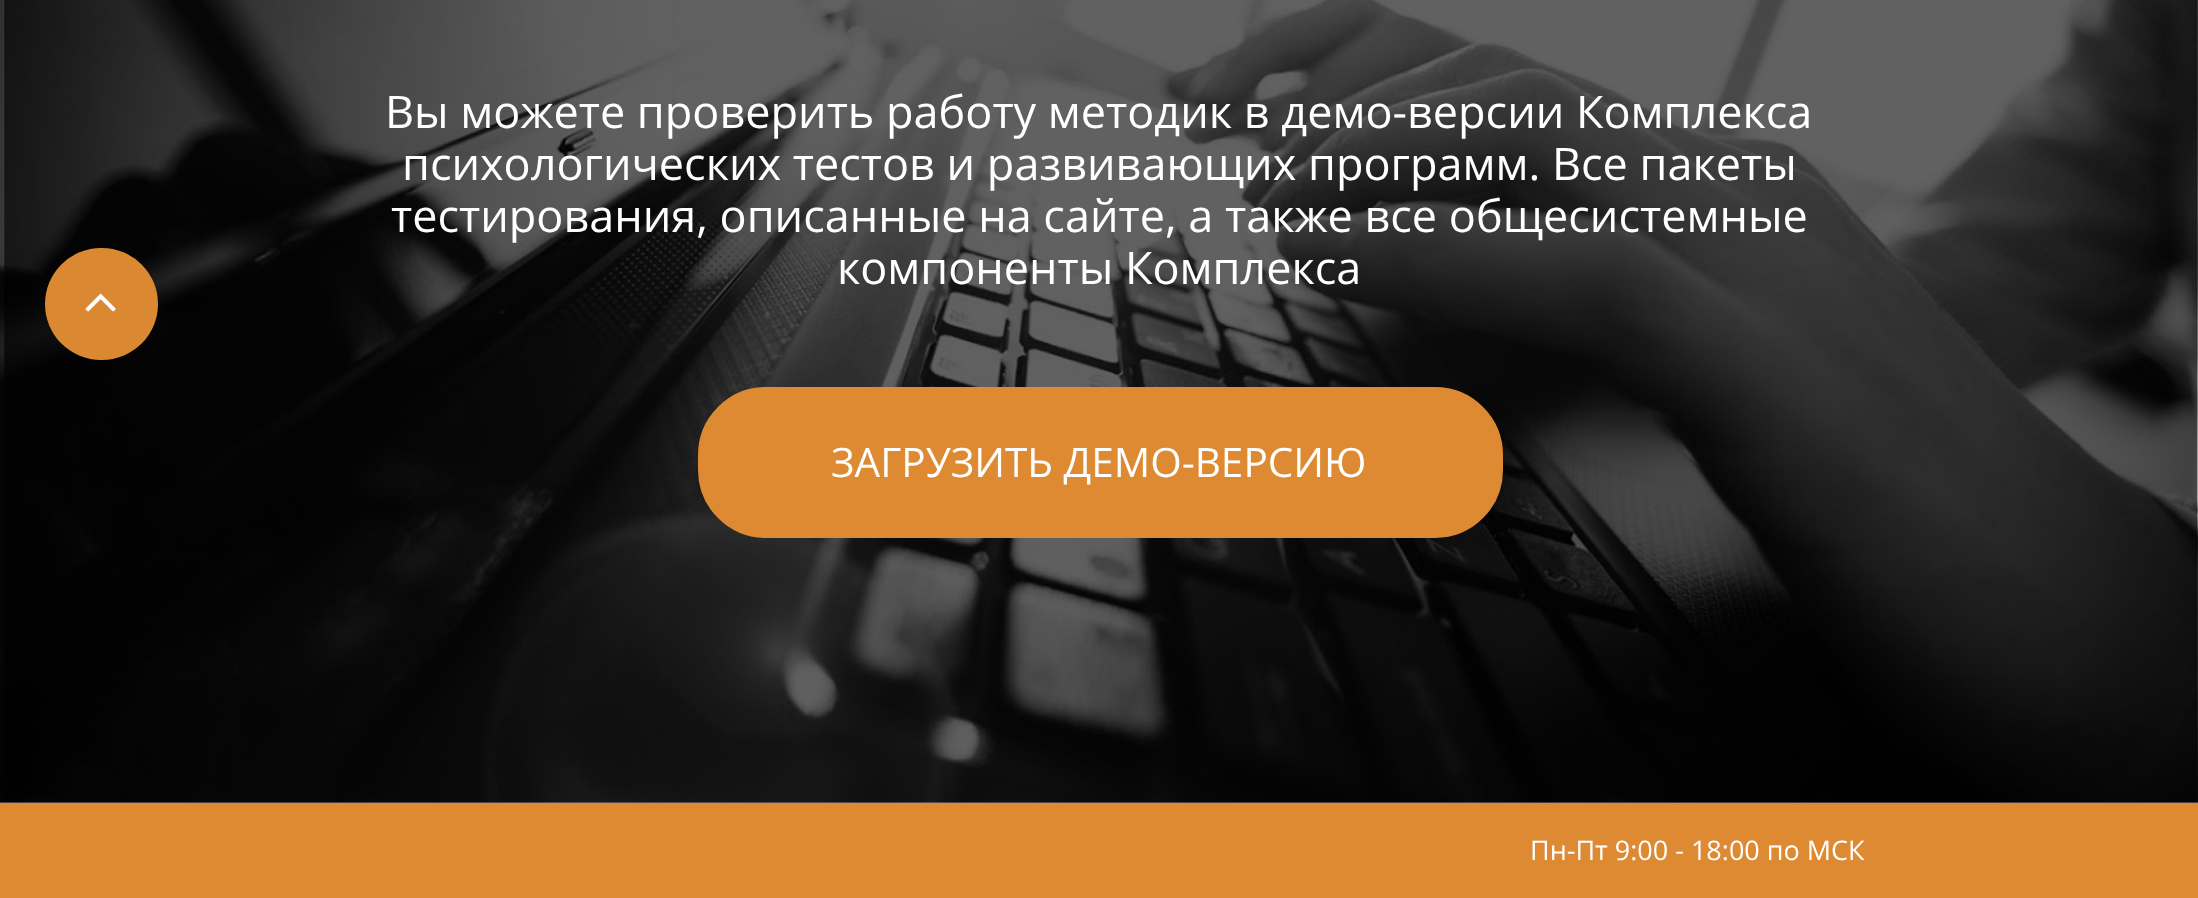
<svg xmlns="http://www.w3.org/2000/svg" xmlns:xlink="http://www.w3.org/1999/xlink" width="2198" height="898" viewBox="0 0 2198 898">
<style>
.cls-1{font:45px Open Sans;fill:#ffffff}
.cls-2{font:40.5px Open Sans;fill:#ffffff}
.cls-3{font:27px Open Sans;fill:#ffffff}
</style>
<rect width="100%" height="100%" fill="#ffffff"/>
<image xlink:href="image1.png" x="0" y="0" width="2198" height="803"/>
<rect fill="#dd8a32" fill-opacity="0.99" x="45" y="248" width="113" height="112" rx="56"/>
<image xlink:href="image0.png" x="85" y="293" width="31" height="19"/>
<rect fill="#dd8a32" stroke="#dd8a32" stroke-width="2" x="699" y="388" width="803" height="149" rx="67"/>
<rect fill="#dd8a32" x="0" y="803" width="2198" height="95"/>
<text class="cls-1" x="385" y="128">Вы можете проверить работу методик в демо-версии Комплекса</text>
<text class="cls-1" x="402" y="180">психологических тестов и развивающих программ. Все пакеты</text>
<text class="cls-1" x="391" y="232">тестирования, описанные на сайте, а также все общесистемные</text>
<text class="cls-1" x="837" y="284">компоненты Комплекса</text>
<text class="cls-2" x="831" y="477">ЗАГРУЗИТЬ ДЕМО-ВЕРСИЮ</text>
<text class="cls-3" x="1530" y="860">Пн-Пт 9:00 - 18:00 по МСК</text>
</svg>
